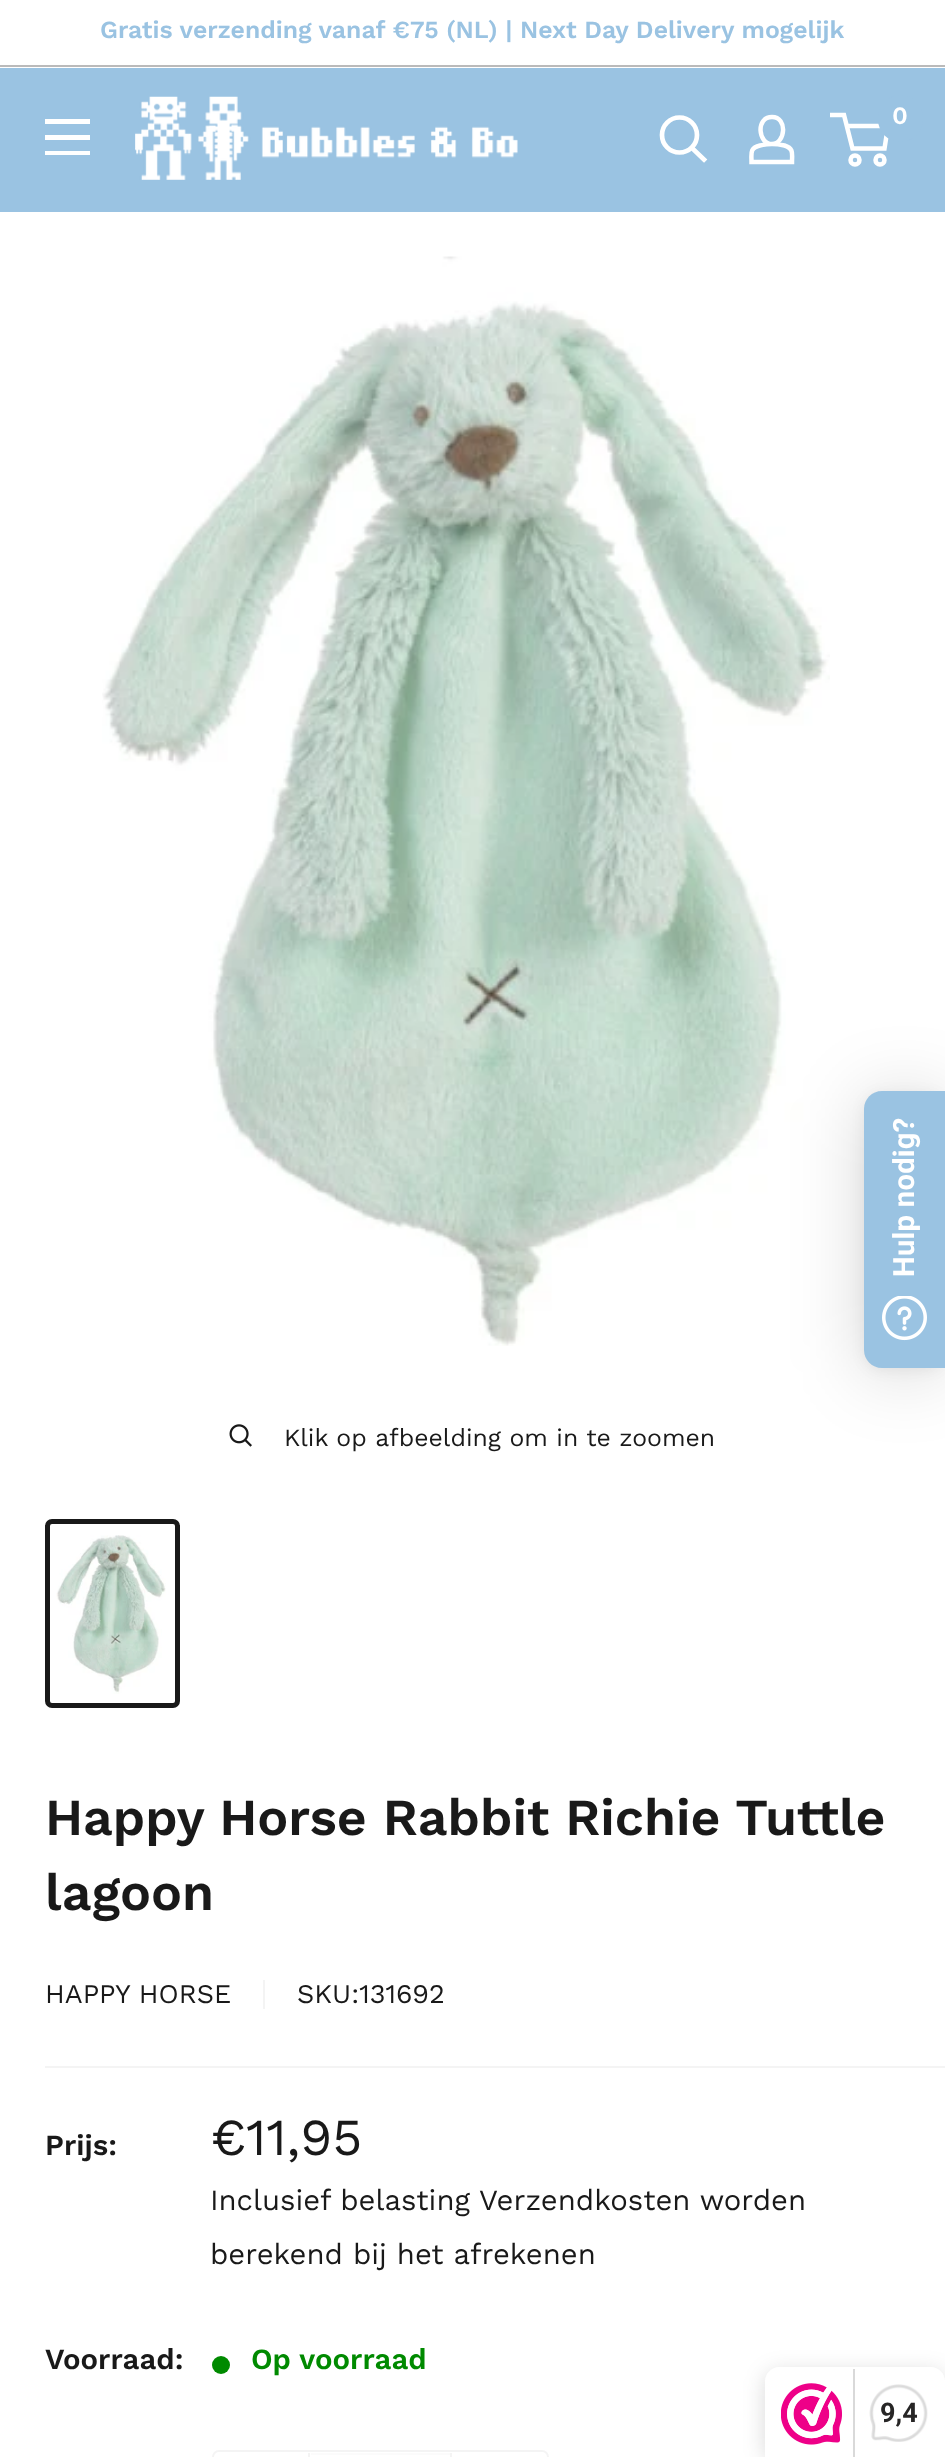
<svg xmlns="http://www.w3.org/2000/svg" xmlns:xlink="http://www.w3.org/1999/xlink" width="945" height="2457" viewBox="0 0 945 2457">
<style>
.cls-1{font:600 24.75px Work Sans;fill:#9ac3e2}
.cls-2{font:600 25px Work Sans;fill:#ffffff}
.cls-3{font:bold 29.25px Roboto;letter-spacing:0.25px;fill:#ffffff}
.cls-4{font:24.75px Work Sans;fill:#191919}
.cls-5{font:600 51.75px Work Sans;fill:#191919}
.cls-6{font:27px Work Sans;fill:#191919}
.cls-7{font:600 29.25px Work Sans;fill:#191919}
.cls-8{font:51.75px Work Sans;fill:#191919}
.cls-9{font:29.25px Work Sans;fill:#191919}
.cls-10{font:600 29.25px Work Sans;fill:#008a00}
.cls-11{font:bold 27px Roboto;fill:#272626}
</style>
<rect width="100%" height="100%" fill="#ffffff"/>
<rect fill="#bababa" x="0" y="65" width="945" height="2"/>
<rect fill="#9ac3e2" x="0" y="68" width="945" height="144"/>
<image xlink:href="image0.png" x="135" y="96" width="383" height="84"/>
<path fill="none" stroke="#ffffff" stroke-width="4.7" stroke-linecap="square" d="M704 159.5L692 148"/>
<circle fill="none" stroke="#ffffff" stroke-width="4.7" cx="679.5" cy="135" r="17.5"/>
<path fill="none" stroke="#ffffff" stroke-width="4.5" d="M772 144C776 144 780 144.5 784.5 145.5C794 148.5 792 153.5 792 162H751.5C751.5 153 749.5 148 760 145.5C764 144.5 768 144 772 144ZM772 144C758 144 755.5 117 772 117C788 117 785.5 144 772 144Z"/>
<circle fill="none" stroke="#ffffff" stroke-width="4.5" cx="855" cy="160" r="4.5"/>
<circle fill="none" stroke="#ffffff" stroke-width="4.5" cx="880" cy="160" r="4.5"/>
<path fill="none" stroke="#ffffff" stroke-width="4.5" d="M846.5 126H888L884.5 148.5H852.5L844 115H830"/>
<rect fill="#9ac3e2" x="878" y="95" width="45" height="47" rx="22.5"/>
<path fill="#ffffff" fill-rule="evenodd" d="M45 151H90V155H45ZM45 119H90V124H45ZM45 135H90V140H45Z"/>
<image xlink:href="image2.png" x="102" y="256" width="728" height="1090"/>
<rect fill="#000000" fill-opacity="0.16" filter="blur(36px)" x="864" y="1096" width="81" height="277" rx="18"/>
<rect fill="#000000" fill-opacity="0.06" filter="blur(7px)" x="864" y="1094" width="81" height="276" rx="18"/>
<path fill="#9ac3e2" d="M882 1091H945V1368H882C872 1368 864 1360 864 1350V1109C864 1099 872 1091 882 1091Z"/>
<image xlink:href="image1.png" x="882" y="1296" width="45" height="45"/>
<image xlink:href="image3.png" x="229" y="1424" width="23" height="23"/>
<rect fill="none" stroke="#191919" stroke-width="5" x="47.5" y="1521.5" width="130" height="184" rx="4.5"/>
<image xlink:href="image4.png" x="56" y="1535" width="110" height="159"/>
<rect fill="#f4f4f4" x="263" y="1980" width="2" height="29"/>
<rect fill="#f4f4f4" x="45" y="2066" width="900" height="2"/>
<circle fill="#008a00" cx="221" cy="2365" r="9"/>
<rect fill="none" stroke="#f4f4f4" stroke-width="2" x="213" y="2451" width="335" height="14" rx="6"/>
<rect fill="#fbfbfb" x="311" y="2453" width="139" height="2"/>
<rect fill="#f4f4f4" x="450" y="2453" width="2" height="4"/>
<rect fill="#f4f4f4" x="308" y="2453" width="2" height="4"/>
<rect fill="#000000" fill-opacity="0.15" filter="blur(11px)" x="765" y="2372" width="180" height="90" rx="14"/>
<path fill="#ffffff" d="M779 2367H931C938.5 2367 945 2373.5 945 2381V2457H765V2381C765 2373.5 771.5 2367 779 2367Z"/>
<image xlink:href="image5.png" x="781" y="2383" width="61" height="62"/>
<rect fill="#d9d9d9" x="853" y="2369" width="2" height="88"/>
<image xlink:href="image6.png" x="869" y="2384" width="59" height="58"/>
<text class="cls-1" x="100" y="38">Gratis verzending vanaf €75 (NL) | Next Day Delivery mogelijk</text>
<text class="cls-2" x="892" y="124">0</text>
<text class="cls-3" x="914" y="1277" transform="rotate(-90 914 1277)">Hulp nodig?</text>
<text class="cls-4" x="284" y="1446">Klik op afbeelding om in te zoomen</text>
<text class="cls-5"><tspan x="45" y="1835">Happy Horse Rabbit Richie Tuttle</tspan><tspan x="45" y="1910">lagoon</tspan></text>
<text class="cls-6" x="45" y="2003">HAPPY HORSE</text>
<text class="cls-6" x="297" y="2003">SKU:131692</text>
<text class="cls-7" x="45" y="2155">Prijs:</text>
<text class="cls-8" x="210" y="2155">€11,95</text>
<text class="cls-9" x="210" y="2210">Inclusief belasting</text>
<text class="cls-9" x="479" y="2210">Verzendkosten worden</text>
<text class="cls-9" x="210" y="2264">berekend bij het afrekenen</text>
<text class="cls-7" x="45" y="2369">Voorraad:</text>
<text class="cls-10" x="251" y="2369">Op voorraad</text>
<text class="cls-11" x="880" y="2422">9,4</text>
</svg>
